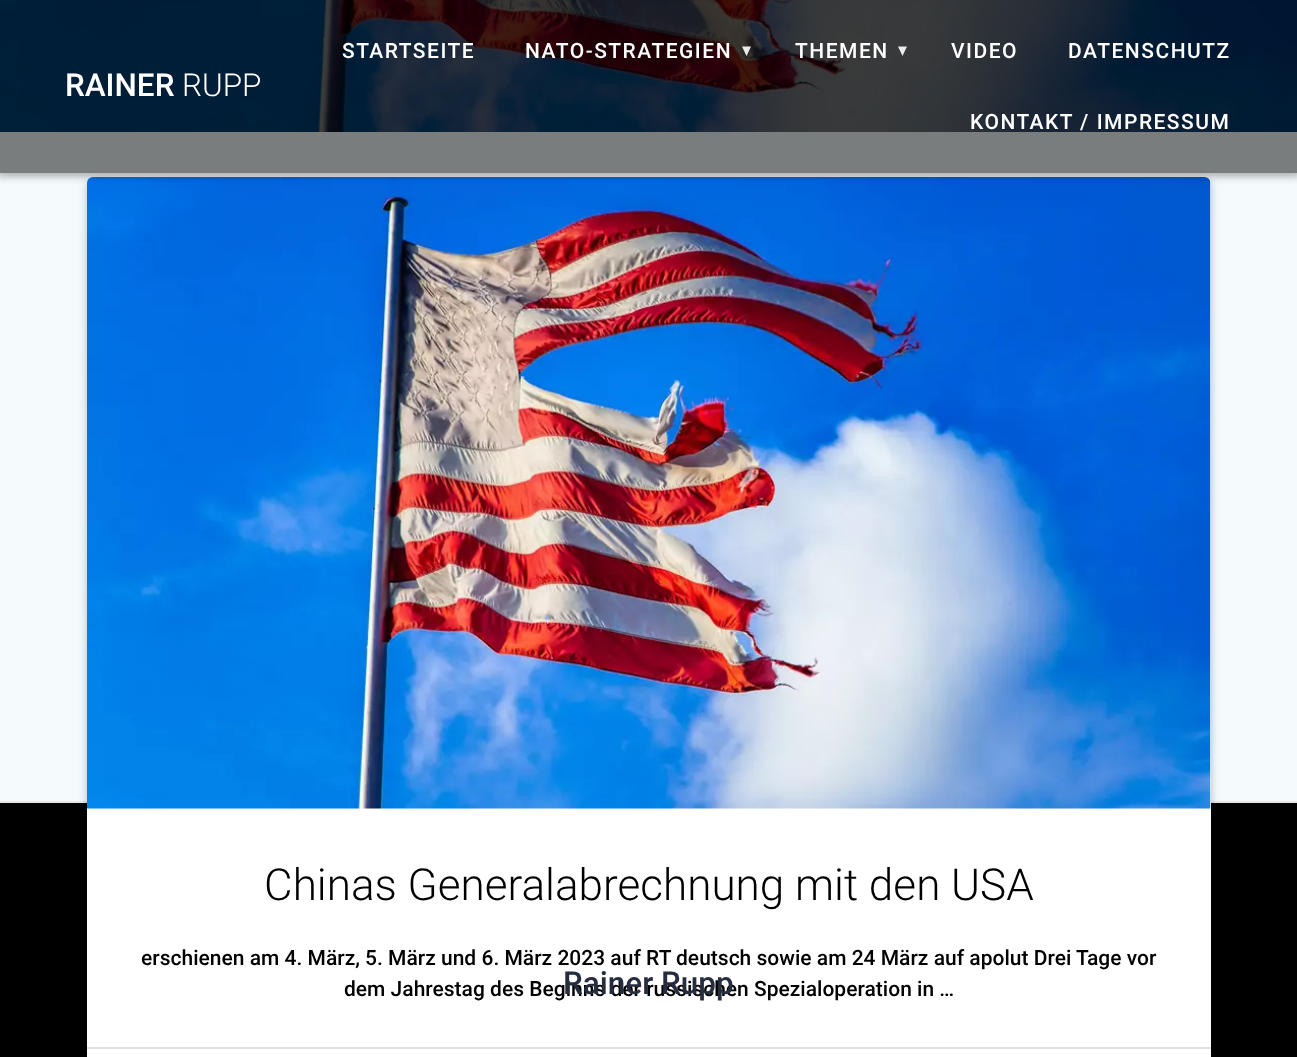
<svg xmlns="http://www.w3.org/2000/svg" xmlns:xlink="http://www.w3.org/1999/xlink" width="1297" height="1057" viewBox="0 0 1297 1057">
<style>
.cls-1{font:500 31.5px Roboto;fill:#ffffff}
.cls-2{font:300 31.5px Roboto;fill:#ffffff}
.cls-3{font:500 21px Roboto;letter-spacing:1.5px;fill:#ffffff}
.cls-4{font:300 44.1px Roboto;fill:#000000}
.cls-5{font:500 21px Roboto;fill:#000000}
.cls-6{font:500 31.5px Roboto;fill:#262d3f}
</style>
<defs>
<clipPath id="clip1"><path d="M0 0H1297V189H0ZM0 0H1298V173H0Z" clip-rule="evenodd"/></clipPath>
</defs>
<rect width="100%" height="100%" fill="#000000"/>
<image xlink:href="image0.png" x="0" y="0" width="1297" height="132"/>
<rect fill="#f5fafd" x="0" y="132" width="1297" height="669"/>
<rect fill="#e8e8e8" x="0" y="801" width="1297" height="2"/>
<rect fill="#000000" fill-opacity="0.12" filter="blur(6px)" x="87" y="179" width="1124" height="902" rx="6"/>
<rect fill="#000000" fill-opacity="0.14" filter="blur(3px)" x="87" y="182" width="1124" height="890" rx="6"/>
<rect fill="#ffffff" x="87" y="177" width="1124" height="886" rx="6"/>
<image xlink:href="image1.png" x="87" y="177" width="1124" height="632"/>
<g clip-path="url(#clip1)">
<rect fill="#000000" fill-opacity="0.33" filter="blur(4px)" x="-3" y="-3" width="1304" height="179"/>
</g>
<rect fill="#000000" fill-opacity="0.5" x="0" y="0" width="1297" height="173"/>
<path fill="#ffffff" fill-opacity="0.9" d="M742 46.5L746.5 56L751 46.5Z"/>
<path fill="#ebebeb" d="M898 46.5L902.5 56L907 46.5Z"/>
<rect fill="#e0e1e1" x="87" y="1047" width="1124" height="2"/>
<text class="cls-1" x="65" y="96">RAINER</text>
<text class="cls-2" x="182" y="96">RUPP</text>
<text class="cls-3" x="342" y="58">STARTSEITE</text>
<text class="cls-3" x="525" y="58">NATO-STRATEGIEN</text>
<text class="cls-3" x="795" y="58">THEMEN</text>
<text class="cls-3" x="951" y="58">VIDEO</text>
<text class="cls-3" x="1068" y="58">DATENSCHUTZ</text>
<text class="cls-3" x="970" y="129">KONTAKT / IMPRESSUM</text>
<text class="cls-4" x="264" y="900">Chinas Generalabrechnung mit den USA</text>
<text class="cls-5" x="141" y="965">erschienen am 4. März, 5. März und 6. März 2023 auf RT deutsch sowie am 24 März auf apolut Drei Tage vor</text>
<text class="cls-5" x="344" y="996">dem Jahrestag des Beginns der russischen Spezialoperation in …</text>
<text class="cls-6" x="563" y="994">Rainer Rupp</text>
</svg>
